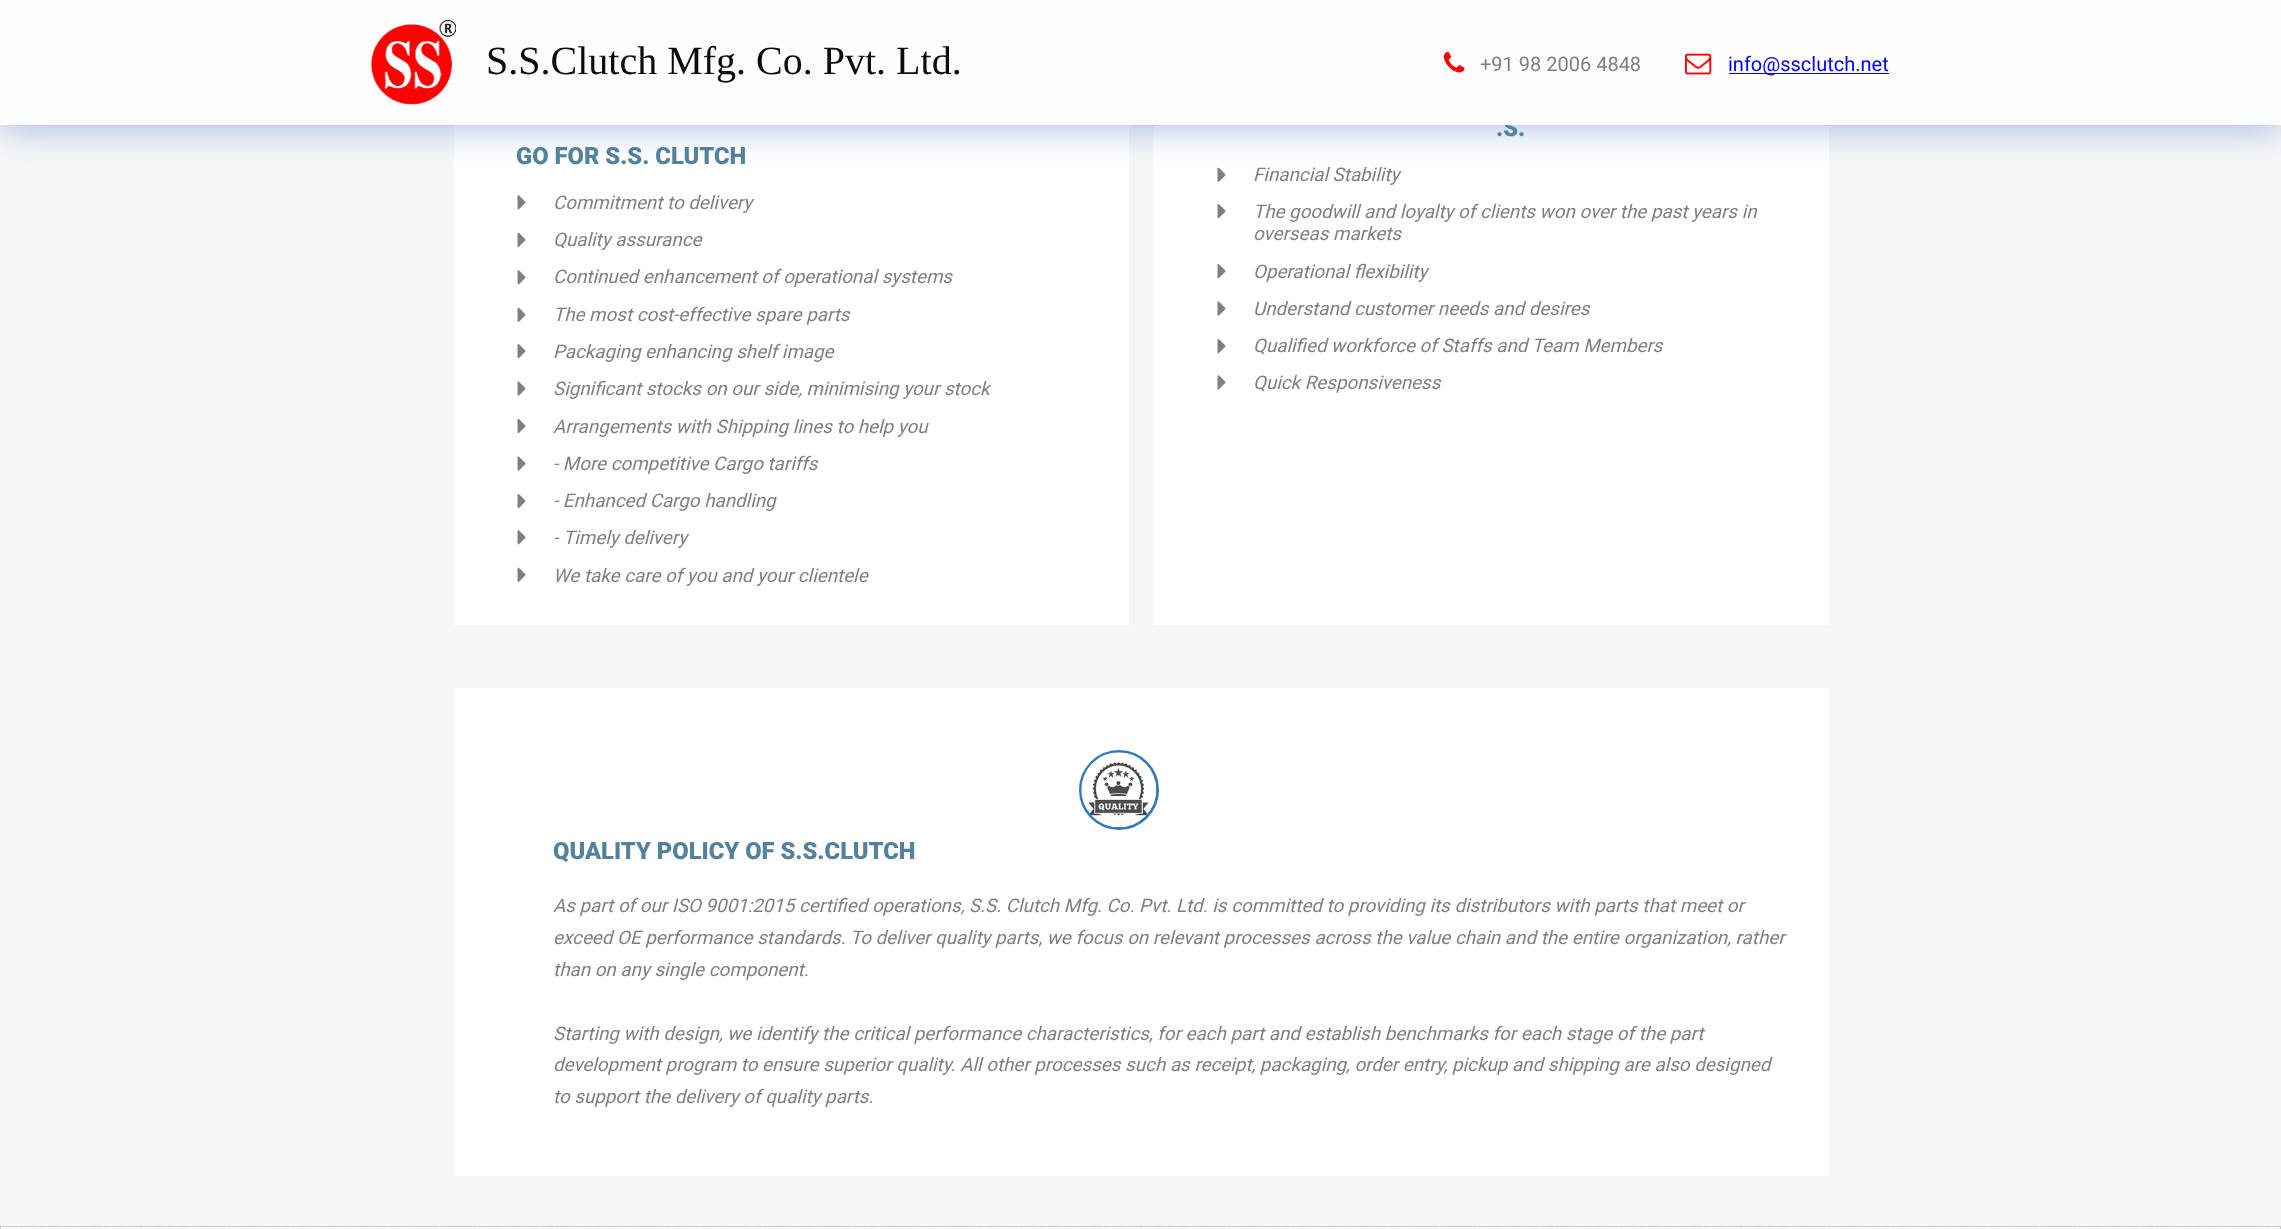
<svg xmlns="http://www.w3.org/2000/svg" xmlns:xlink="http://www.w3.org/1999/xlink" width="2281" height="1229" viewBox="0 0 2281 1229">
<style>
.cls-1{font:900 23.75px Roboto;fill:#54819c}
.cls-2{font:italic 18.75px Roboto;fill:#7f7f7f}
.cls-3{font:20px Roboto;fill:#7f7f7f}
.cls-4{font:20px Roboto;fill:#0000ee}
.cls-5{font:40px Liberation Serif;fill:#0c0c0c}
</style>
<rect width="100%" height="100%" fill="#ffffff"/>
<rect fill="#f5f6f7" x="0" y="125" width="2281" height="1101"/>
<rect fill="#ffffff" x="454" y="125" width="675" height="500"/>
<rect fill="#ffffff" x="1154" y="125" width="675" height="500"/>
<image xlink:href="image4.png" x="1217" y="167" width="9" height="15"/>
<rect fill="#4472c4" fill-opacity="0.54" filter="blur(19px)" x="0" y="0" width="2281" height="125"/>
<image xlink:href="image3.png" x="517" y="195" width="9" height="15"/>
<image xlink:href="image4.png" x="517" y="232" width="9" height="15"/>
<image xlink:href="image3.png" x="517" y="270" width="9" height="15"/>
<image xlink:href="image4.png" x="517" y="307" width="9" height="15"/>
<image xlink:href="image5.png" x="517" y="344" width="9" height="15"/>
<image xlink:href="image6.png" x="517" y="381" width="9" height="15"/>
<image xlink:href="image5.png" x="517" y="419" width="9" height="15"/>
<image xlink:href="image6.png" x="517" y="456" width="9" height="15"/>
<image xlink:href="image5.png" x="517" y="494" width="9" height="15"/>
<image xlink:href="image3.png" x="517" y="530" width="9" height="15"/>
<image xlink:href="image4.png" x="517" y="567" width="9" height="15"/>
<image xlink:href="image5.png" x="1217" y="204" width="9" height="15"/>
<image xlink:href="image5.png" x="1217" y="264" width="9" height="15"/>
<image xlink:href="image6.png" x="1217" y="301" width="9" height="15"/>
<image xlink:href="image5.png" x="1217" y="339" width="9" height="15"/>
<image xlink:href="image3.png" x="1217" y="375" width="9" height="15"/>
<rect fill="#ffffff" x="454" y="688" width="1375" height="488"/>
<circle fill="none" stroke="#337ab7" stroke-width="3" cx="1119" cy="790" r="38.5"/>
<image xlink:href="image7.png" x="1081" y="752" width="76" height="76"/>
<image xlink:href="image8.png" x="1" y="1227" width="2279" height="2"/>
<rect fill="none" stroke="#cccccc" x="0.5" y="1226.5" width="2280" height="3"/>
<text class="cls-1" x="516" y="164">GO FOR S.S. CLUTCH</text>
<text class="cls-2"><tspan x="553" y="209">Commitment to delivery</tspan><tspan x="553" y="246">Quality assurance</tspan><tspan x="553" y="283">Continued enhancement of operational systems</tspan></text>
<text class="cls-2"><tspan x="553" y="321">The most cost-effective spare parts</tspan><tspan x="553" y="358">Packaging enhancing shelf image</tspan><tspan x="553" y="395">Significant stocks on our side, minimising your stock</tspan></text>
<text class="cls-2"><tspan x="553" y="433">Arrangements with Shipping lines to help you</tspan><tspan x="553" y="470">- More competitive Cargo tariffs</tspan><tspan x="553" y="507">- Enhanced Cargo handling</tspan><tspan x="553" y="544">-</tspan></text>
<text class="cls-2" x="563" y="544">Timely delivery</text>
<text class="cls-2" x="553" y="582">We take care of you and your clientele</text>
<text class="cls-1" x="1496" y="136">.S.</text>
<rect fill="#fdfdfd" x="0" y="0" width="2281" height="125"/>
<image xlink:href="image1.png" x="1443" y="51" width="22" height="22"/>
<text class="cls-3" x="1480" y="71">+91 98 2006 4848</text>
<rect fill="#0000ee" x="1729" y="73" width="160" height="1"/>
<text class="cls-4" x="1728" y="71">info@ssclutch.net</text>
<image xlink:href="image2.png" x="1685" y="53" width="27" height="22"/>
<text class="cls-5" x="486" y="74">S.S.Clutch Mfg. Co. Pvt. Ltd.</text>
<image xlink:href="image0.png" x="371" y="20" width="85" height="85"/>
<text class="cls-2"><tspan x="1253" y="181">Financial Stability</tspan><tspan x="1253" y="218">The goodwill and loyalty of clients won over the past years in</tspan><tspan x="1253" y="240">overseas markets</tspan></text>
<text class="cls-2"><tspan x="1253" y="278">Operational flexibility</tspan><tspan x="1253" y="315">Understand customer needs and desires</tspan><tspan x="1253" y="352">Qualified workforce of Staffs and Team Members</tspan><tspan x="1253" y="389">Quick Responsiveness</tspan></text>
<text class="cls-1" x="553" y="859">QUALITY POLICY OF S.S.CLUTCH</text>
<text class="cls-2"><tspan x="553" y="912">As part of our ISO 9001:2015 certified operations, S.S. Clutch Mfg. Co. Pvt. Ltd. is committed to providing its distributors with parts that meet or</tspan><tspan x="553" y="944">exceed OE performance standards. To deliver quality parts, we focus on relevant processes across the value chain and the entire organization, rather</tspan><tspan x="553" y="976">than on any single component.</tspan></text>
<text class="cls-2"><tspan x="553" y="1040">Starting with design, we identify the critical performance characteristics, for each part and establish benchmarks for each stage of the part</tspan><tspan x="553" y="1071">development program to ensure superior quality. All other processes such as receipt, packaging, order entry, pickup and shipping are also designed</tspan><tspan x="553" y="1103">to support the delivery of quality parts.</tspan></text>
</svg>
